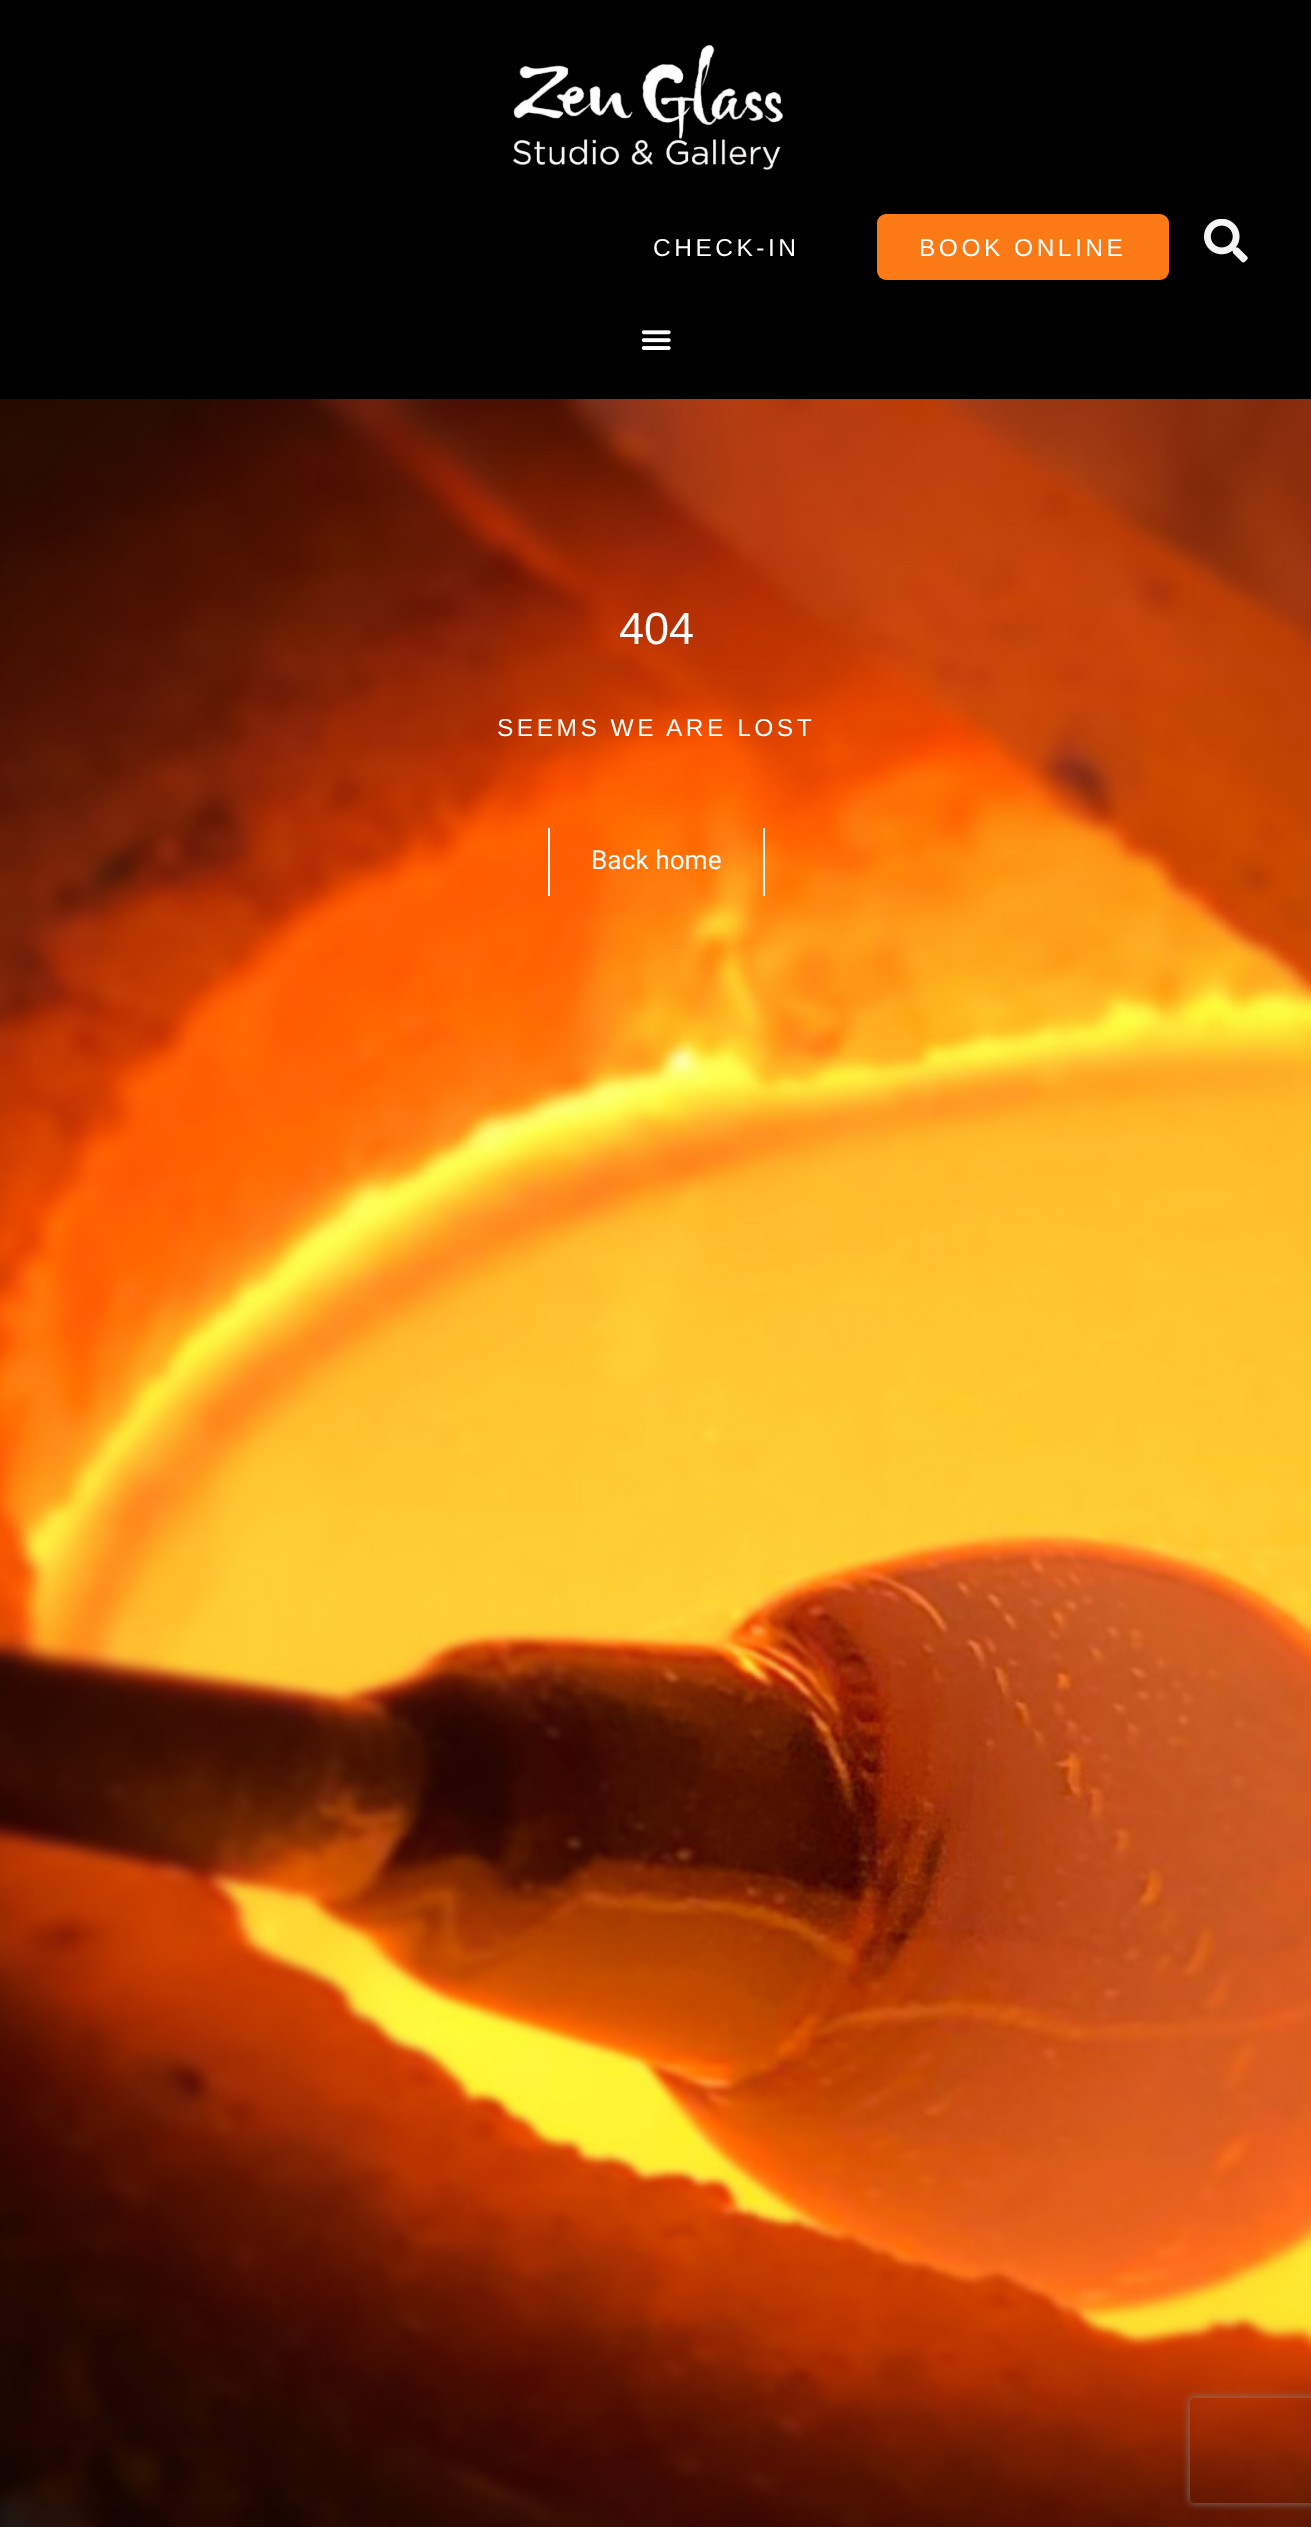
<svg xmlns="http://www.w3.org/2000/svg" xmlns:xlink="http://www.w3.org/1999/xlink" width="1311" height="2527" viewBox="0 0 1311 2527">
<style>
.cls-1{font:24.5px Liberation Sans;letter-spacing:3.5px;fill:#ffffff}
.cls-2{font:45px Liberation Sans;fill:#ffffff}
.cls-3{font:26.25px Roboto;fill:#ffffff}
</style>
<defs>
<clipPath id="clip1"><path d="M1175 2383H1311V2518H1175ZM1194 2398H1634C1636 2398 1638 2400 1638 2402V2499C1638 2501 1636 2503 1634 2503H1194C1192 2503 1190 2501 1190 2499V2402C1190 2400 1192 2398 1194 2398Z" clip-rule="evenodd"/></clipPath>
</defs>
<rect width="100%" height="100%" fill="#ffffff"/>
<rect fill="#000000" x="0" y="0" width="1311" height="399"/>
<image xlink:href="image0.png" x="512" y="45" width="272" height="125"/>
<rect fill="#fb7a15" x="877" y="214" width="292" height="66" rx="9"/>
<image xlink:href="image1.png" x="1204" y="219" width="44" height="44"/>
<image xlink:href="image2.png" x="641" y="330" width="30" height="20"/>
<image xlink:href="image3.png" x="0" y="399" width="1311" height="2128"/>
<rect fill="#ffffff" x="763" y="828" width="2" height="68"/>
<rect fill="#ffffff" x="548" y="828" width="2" height="68"/>
<g clip-path="url(#clip1)">
<rect fill="#808080" filter="blur(4.5px)" x="1190" y="2398" width="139" height="105" rx="4"/>
</g>
<text class="cls-1" x="653" y="256">CHECK-IN</text>
<text class="cls-1" x="919" y="256">BOOK ONLINE</text>
<text class="cls-2" x="619" y="644">404</text>
<text class="cls-1" x="497" y="736">SEEMS WE ARE LOST</text>
<text class="cls-3" x="591" y="869">Back home</text>
</svg>
